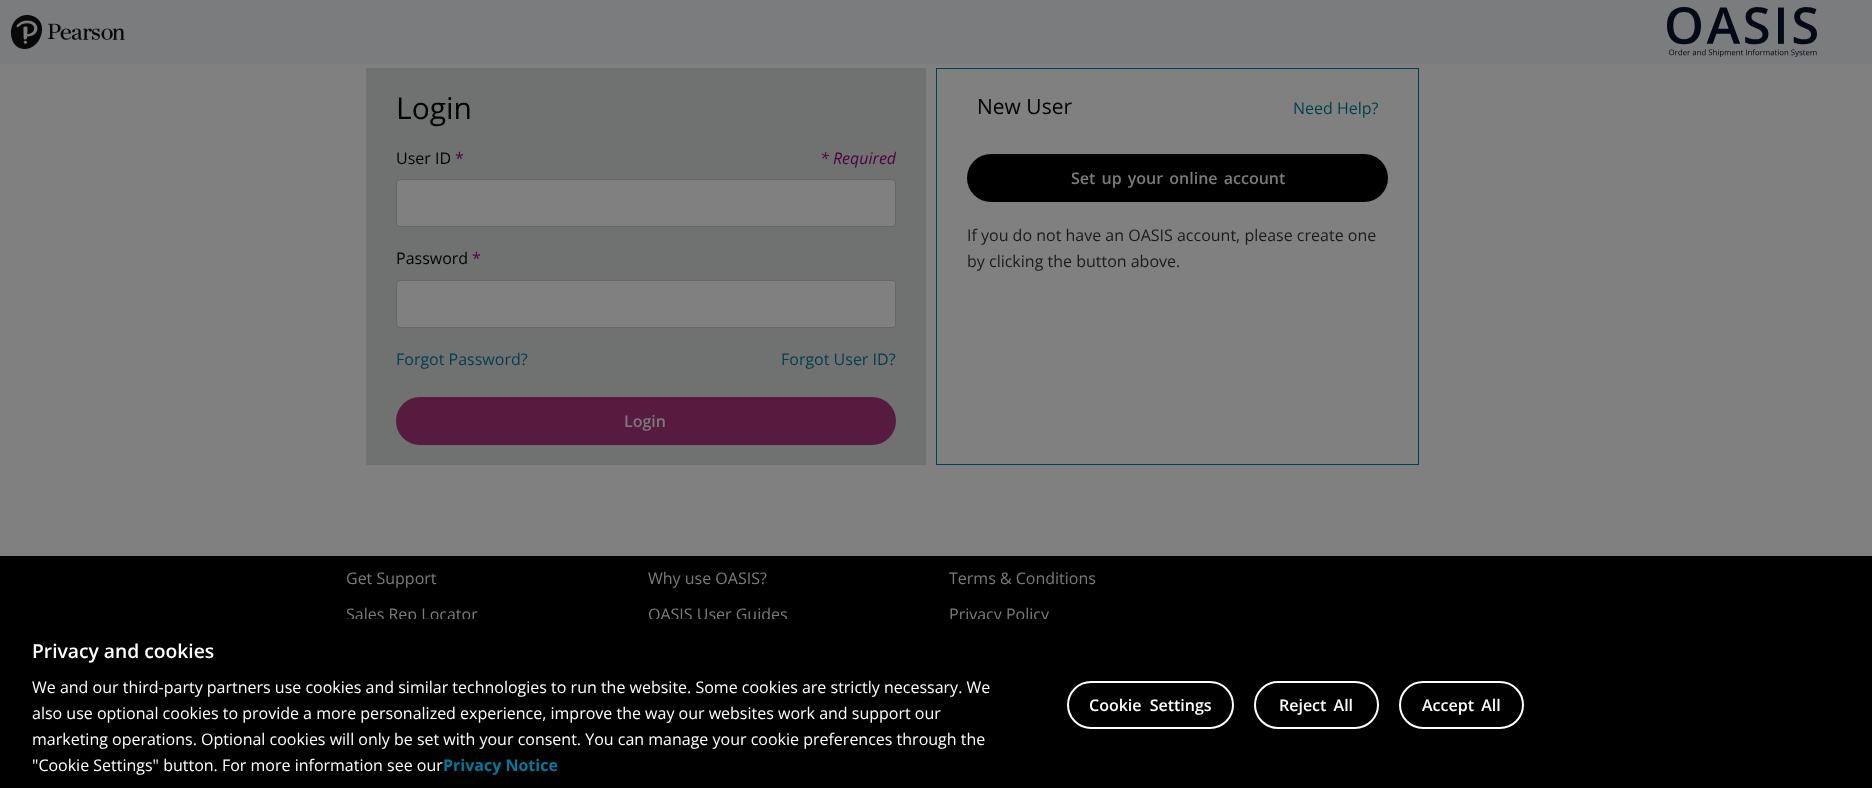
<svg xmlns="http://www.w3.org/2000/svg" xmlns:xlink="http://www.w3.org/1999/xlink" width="1872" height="788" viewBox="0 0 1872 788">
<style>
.cls-1{font:30px Open Sans;fill:#000000}
.cls-2{font:16px Open Sans;fill:#000000}
.cls-3{font:16px Open Sans;fill:#4f003f}
.cls-4{font:italic 16px Open Sans;fill:#4f003f}
.cls-5{font:16px Open Sans;fill:#003d4e}
.cls-6{font:600 16px Open Sans;fill:#7b7b7b}
.cls-7{font:21px Open Sans;fill:#000000}
.cls-8{font:16px Open Sans;fill:#1a1a1a}
.cls-9{font:16px Open Sans;fill:#7b7b7b}
.cls-10{font:600 19.25px Open Sans;fill:#ffffff}
.cls-11{font:16px Open Sans;fill:#ffffff}
.cls-12{font:bold 16px Open Sans;fill:#007a9c}
.cls-13{font:600 16px Open Sans;fill:#ffffff}
</style>
<rect width="100%" height="100%" fill="#808080"/>
<rect fill="#7a7c7e" x="0" y="0" width="1872" height="64"/>
<image xlink:href="image0.png" x="10" y="15" width="115" height="34"/>
<image xlink:href="image1.png" x="1667" y="7" width="150" height="50"/>
<rect fill="#707171" x="366" y="68" width="560" height="397"/>
<rect fill="#808080" stroke="#666666" x="396.5" y="179.5" width="499" height="47" rx="3.5"/>
<rect fill="#808080" stroke="#666666" x="396.5" y="280.5" width="499" height="47" rx="3.5"/>
<rect fill="#571b3f" x="396" y="397" width="500" height="48" rx="24"/>
<rect fill="none" stroke="#004052" x="936.5" y="68.5" width="482" height="396"/>
<rect fill="#000000" x="967" y="154" width="421" height="48" rx="24"/>
<rect fill="#000000" x="0" y="556" width="1872" height="63"/>
<rect fill="#000000" fill-opacity="0.2" filter="blur(9px)" x="0" y="619" width="1872" height="169"/>
<text class="cls-1" x="396" y="119">Login</text>
<text class="cls-2" x="396" y="164">User ID</text>
<text class="cls-3" x="455" y="164">*</text>
<text class="cls-4" x="820" y="164">* Required</text>
<text class="cls-2" x="396" y="264">Password</text>
<text class="cls-3" x="472" y="264">*</text>
<text class="cls-5" x="396" y="365">Forgot Password?</text>
<text class="cls-5" x="781" y="365">Forgot User ID?</text>
<text class="cls-6" x="624" y="427">Login</text>
<text class="cls-7" x="977" y="114">New User</text>
<text class="cls-5" x="1293" y="114">Need Help?</text>
<text class="cls-6" x="1071" y="184" word-spacing="2">Set up your online account</text>
<text class="cls-8"><tspan x="967" y="241">If you do not have an OASIS account, please create one</tspan><tspan x="967" y="267">by clicking the button above.</tspan></text>
<text class="cls-9" x="346" y="584">Get Support</text>
<text class="cls-9" x="346" y="620">Sales Rep Locator</text>
<text class="cls-9" x="648" y="584">Why use OASIS?</text>
<text class="cls-9" x="648" y="620">OASIS User Guides</text>
<text class="cls-9" x="949" y="584">Terms &amp; Conditions</text>
<text class="cls-9" x="949" y="620">Privacy Policy</text>
<rect fill="#000000" x="0" y="619" width="1872" height="169"/>
<text class="cls-10" x="32" y="658">Privacy and cookies</text>
<text class="cls-11"><tspan x="32" y="693">We and our third-party partners use cookies and similar technologies to run the website. Some cookies are strictly necessary. We</tspan><tspan x="32" y="719">also use optional cookies to provide a more personalized experience, improve the way our websites work and support our</tspan><tspan x="32" y="745">marketing operations. Optional cookies will only be set with your consent. You can manage your cookie preferences through the</tspan><tspan x="32" y="771">"Cookie Settings" button. For more information see our</tspan></text>
<text class="cls-12" x="443" y="771">Privacy Notice</text>
<rect fill="none" stroke="#ffffff" stroke-width="2" x="1068" y="682" width="165" height="46" rx="23"/>
<text class="cls-13" x="1089" y="711" word-spacing="4">Cookie Settings</text>
<rect fill="none" stroke="#ffffff" stroke-width="2" x="1255" y="682" width="123" height="46" rx="23"/>
<text class="cls-13" x="1279" y="711" word-spacing="3">Reject All</text>
<rect fill="none" stroke="#ffffff" stroke-width="2" x="1400" y="682" width="123" height="46" rx="23"/>
<text class="cls-13" x="1422" y="711" word-spacing="3">Accept All</text>
</svg>
